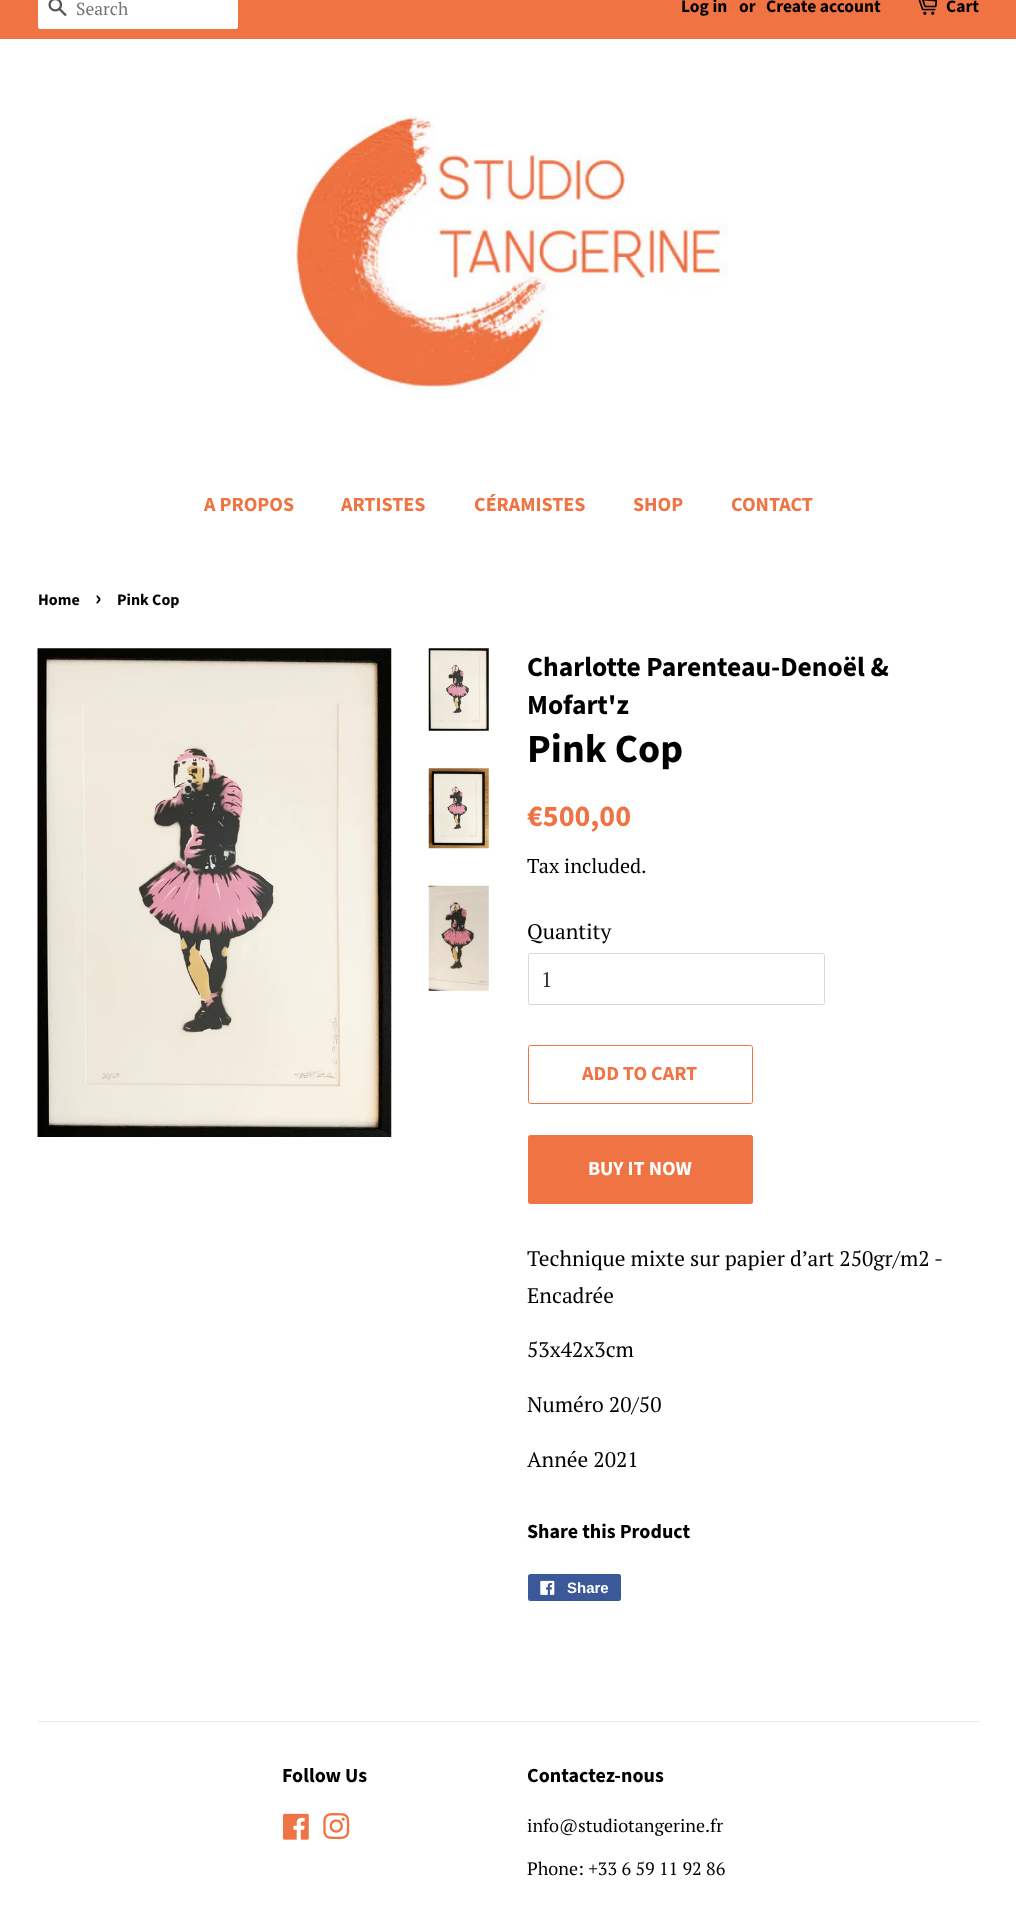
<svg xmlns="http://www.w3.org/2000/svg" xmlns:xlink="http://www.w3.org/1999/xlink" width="1016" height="1914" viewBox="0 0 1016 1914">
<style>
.cls-1{font:17.5px PT Serif;fill:#757575}
.cls-2{font:bold 17.5px Source Sans Pro;fill:#000000}
.cls-3{font:bold 20px Source Sans Pro;fill:#f07343}
.cls-4{font:bold 16px Source Sans Pro;fill:#000000}
.cls-5{font:bold 22px Source Sans Pro;fill:#000000}
.cls-6{font:bold 27.5px Source Sans Pro;fill:#000000}
.cls-7{font:bold 40px Source Sans Pro;fill:#000000}
.cls-8{font:bold 30px Source Sans Pro;fill:#f07343}
.cls-9{font:20px PT Serif;fill:#000000}
.cls-10{font:21.25px PT Serif;fill:#000000}
.cls-11{font:21.25px PT Serif;fill:#333333}
.cls-12{font:bold 20px Source Sans Pro;fill:#ffffff}
.cls-13{font:bold 20px Source Sans Pro;fill:#000000}
.cls-14{font:bold 15px Liberation Sans;fill:#ffffff}
.cls-15{font:18px PT Serif;fill:#000000}
</style>
<rect width="100%" height="100%" fill="#ffffff"/>
<rect fill="#f07343" x="0" y="0" width="1016" height="39"/>
<rect fill="#ffffff" x="38" y="-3" width="200" height="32" rx="2.5"/>
<image xlink:href="image0.png" x="48" y="0" width="19" height="16"/>
<image xlink:href="image1.png" x="918" y="0" width="20" height="15"/>
<image xlink:href="image2.png" x="291" y="115" width="437" height="275"/>
<image xlink:href="image3.png" x="37" y="648" width="355" height="489"/>
<image xlink:href="image4.png" x="428" y="648" width="61" height="83"/>
<image xlink:href="image5.png" x="428" y="768" width="61" height="81"/>
<image xlink:href="image6.png" x="428" y="885" width="61" height="106"/>
<rect fill="none" stroke="#d9d9d9" x="528.5" y="953.5" width="296" height="51" rx="2"/>
<rect fill="none" stroke="#f07343" x="528.5" y="1045.5" width="224" height="58" rx="2"/>
<rect fill="#f07343" x="528" y="1135" width="225" height="69" rx="2.5"/>
<rect fill="#3b5998" x="528" y="1574" width="93" height="27" rx="2.5"/>
<image xlink:href="image7.png" x="540" y="1580" width="15" height="15"/>
<rect fill="#ebebeb" x="38" y="1721" width="941" height="1"/>
<image xlink:href="image8.png" x="283" y="1813" width="26" height="27"/>
<image xlink:href="image9.png" x="323" y="1813" width="27" height="26"/>
<text class="cls-1" x="76" y="15">Search</text>
<text class="cls-2" x="681" y="12">Log in</text>
<text class="cls-2" x="739" y="12">or</text>
<text class="cls-2" x="766" y="12">Create account</text>
<text class="cls-2" x="946" y="12">Cart</text>
<text class="cls-3" x="204" y="511">A PROPOS</text>
<text class="cls-3" x="341" y="511">ARTISTES</text>
<text class="cls-3" x="474" y="511">CÉRAMISTES</text>
<text class="cls-3" x="633" y="511">SHOP</text>
<text class="cls-3" x="731" y="511">CONTACT</text>
<text class="cls-4" x="38" y="605">Home</text>
<text class="cls-5" x="95" y="605">›</text>
<text class="cls-4" x="117" y="605">Pink Cop</text>
<text class="cls-6"><tspan x="527" y="676">Charlotte Parenteau-Denoël &amp;</tspan><tspan x="527" y="714">Mofart'z</tspan></text>
<text class="cls-7" x="527" y="762">Pink Cop</text>
<text class="cls-8" x="527" y="826">€500,00</text>
<text class="cls-9" x="527" y="873">Tax included.</text>
<text class="cls-10" x="527" y="939">Quantity</text>
<text class="cls-11" x="541" y="987">1</text>
<text class="cls-3" x="582" y="1080">ADD TO CART</text>
<text class="cls-12" x="588" y="1175">BUY IT NOW</text>
<text class="cls-10"><tspan x="527" y="1266">Technique mixte sur papier d’art 250gr/m2 -</tspan><tspan x="527" y="1303">Encadrée</tspan></text>
<text class="cls-10" x="527" y="1357">53x42x3cm</text>
<text class="cls-10" x="527" y="1412">Numéro 20/50</text>
<text class="cls-10" x="527" y="1467">Année 2021</text>
<text class="cls-13" x="527" y="1538">Share this Product</text>
<text class="cls-14" x="567" y="1593">Share</text>
<text class="cls-13" x="282" y="1782">Follow Us</text>
<text class="cls-13" x="527" y="1782">Contactez-nous</text>
<text class="cls-15" x="527" y="1832">info@studiotangerine.fr</text>
<text class="cls-15" x="527" y="1875">Phone: +33 6 59 11 92 86</text>
</svg>
